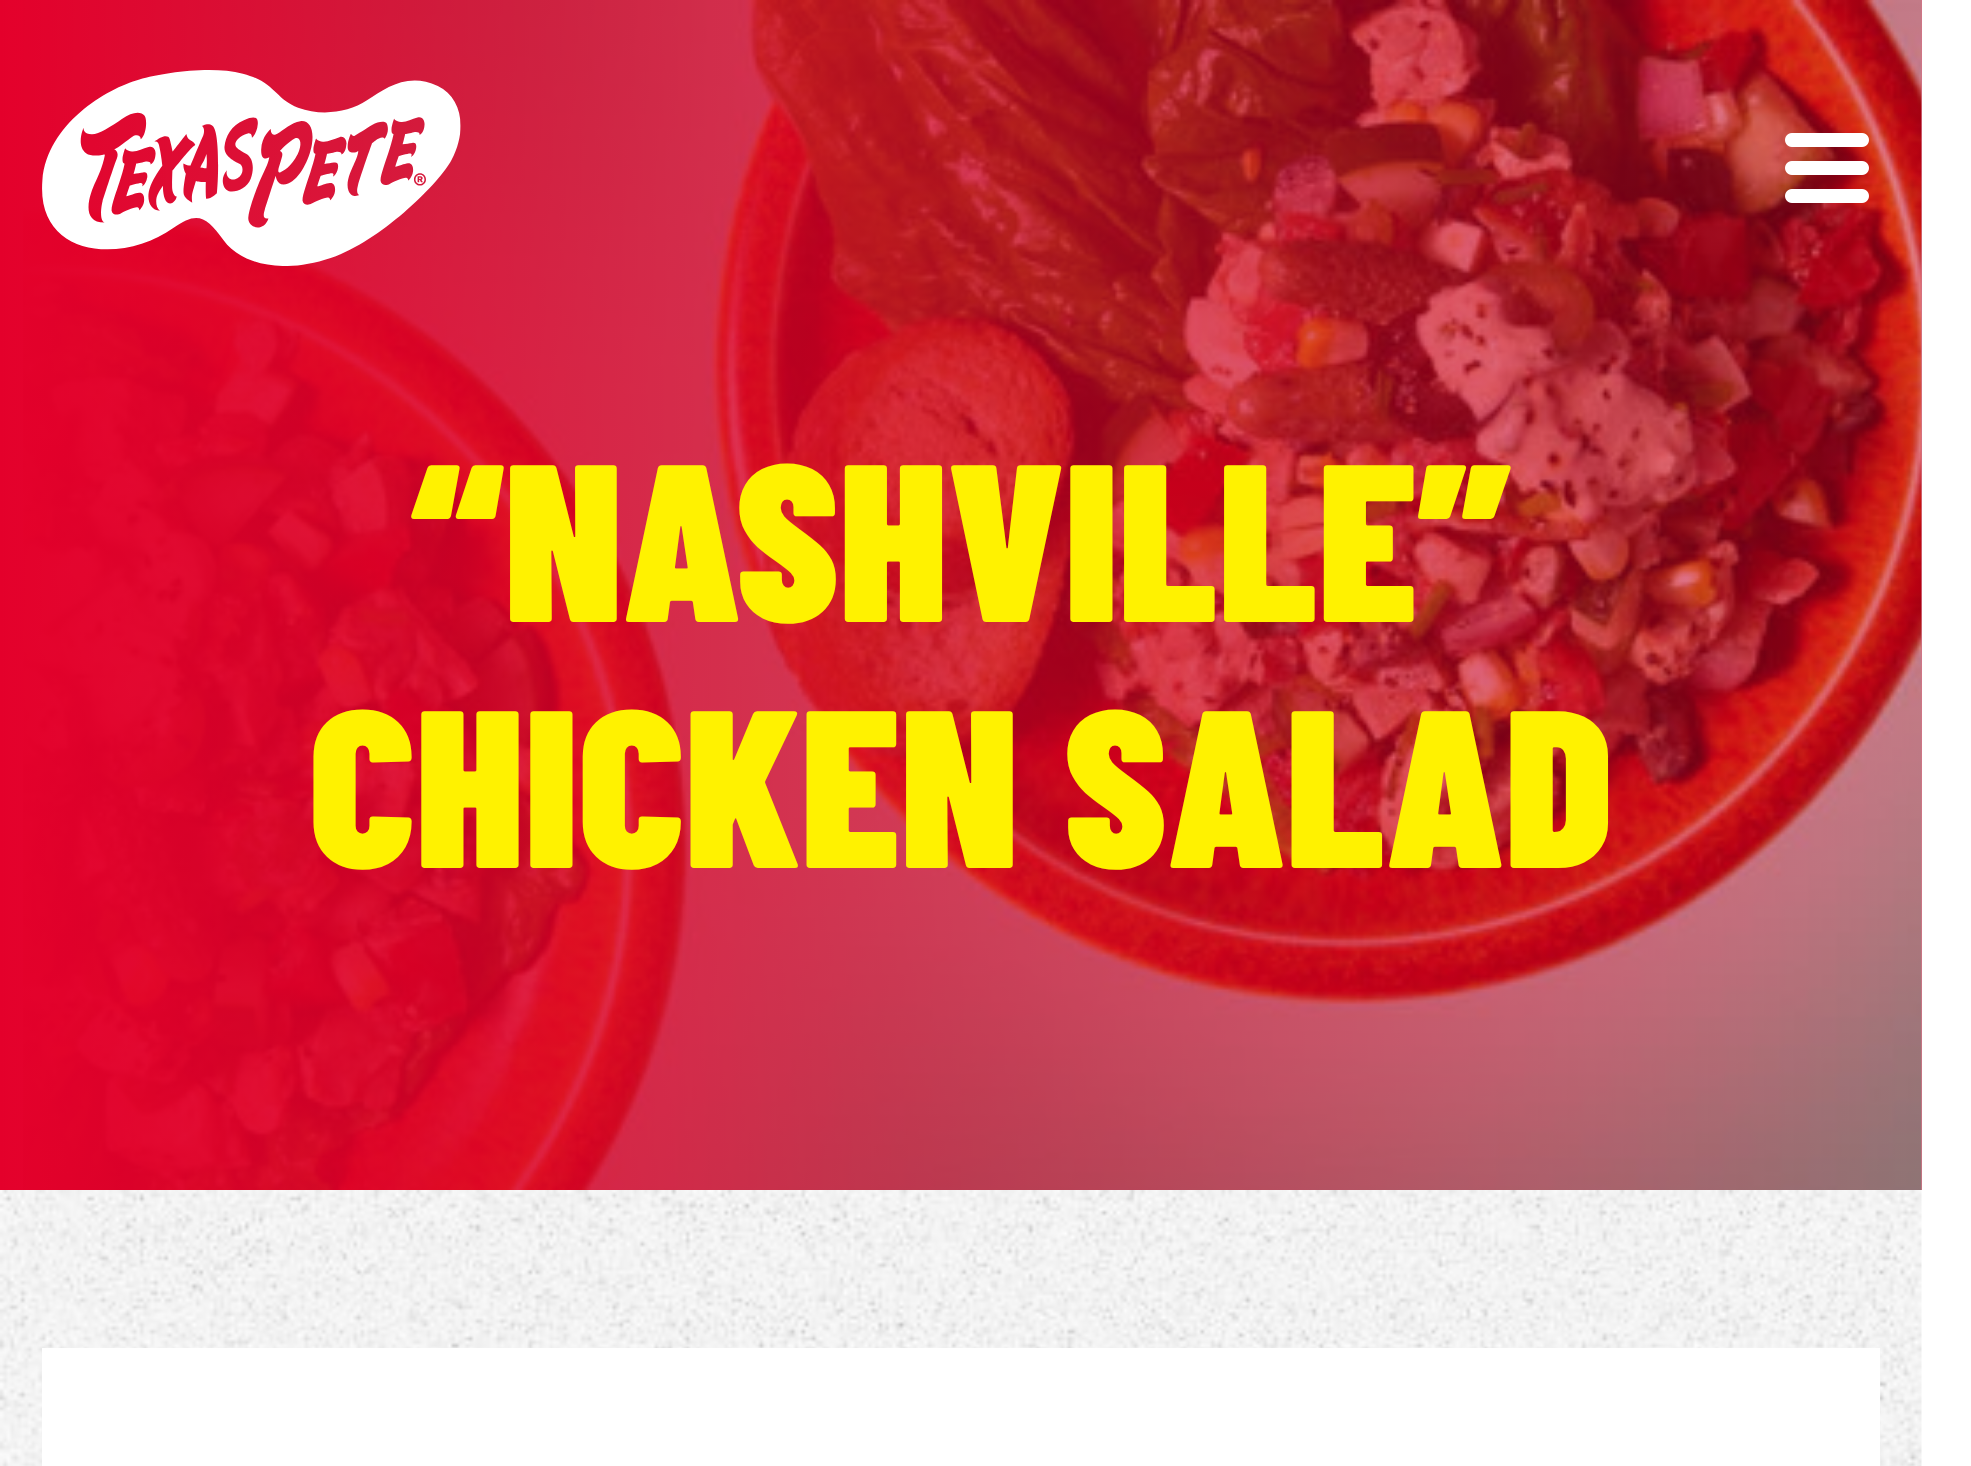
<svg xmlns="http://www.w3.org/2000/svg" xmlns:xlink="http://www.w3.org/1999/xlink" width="1971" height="1466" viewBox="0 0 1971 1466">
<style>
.cls-1{font:900 224px Barlow Condensed;fill:#fff200}
</style>
<defs>
<linearGradient id="g1" gradientUnits="userSpaceOnUse" x1="0" y1="595" x2="1922" y2="595"><stop offset="0" stop-color="#e4002b"/><stop offset="1" stop-color="#bf0023" stop-opacity="0.5"/></linearGradient>
</defs>
<rect width="100%" height="100%" fill="#ffffff"/>
<rect fill="#e8e8e8" x="1921" y="0" width="1" height="1190"/>
<image xlink:href="image2.png" x="23" y="0" width="1899" height="1190"/>
<rect fill="url(#g1)" x="0" y="0" width="1922" height="1190"/>
<image xlink:href="image0.png" x="42" y="70" width="419" height="196"/>
<image xlink:href="image1.png" x="1785" y="133" width="84" height="70"/>
<image xlink:href="image3.png" x="0" y="1190" width="1922" height="276"/>
<rect fill="#ffffff" x="42" y="1348" width="1838" height="118"/>
<text class="cls-1" x="410" y="622">“NASHVILLE”</text>
<text class="cls-1" x="309" y="868">CHICKEN SALAD</text>
</svg>
